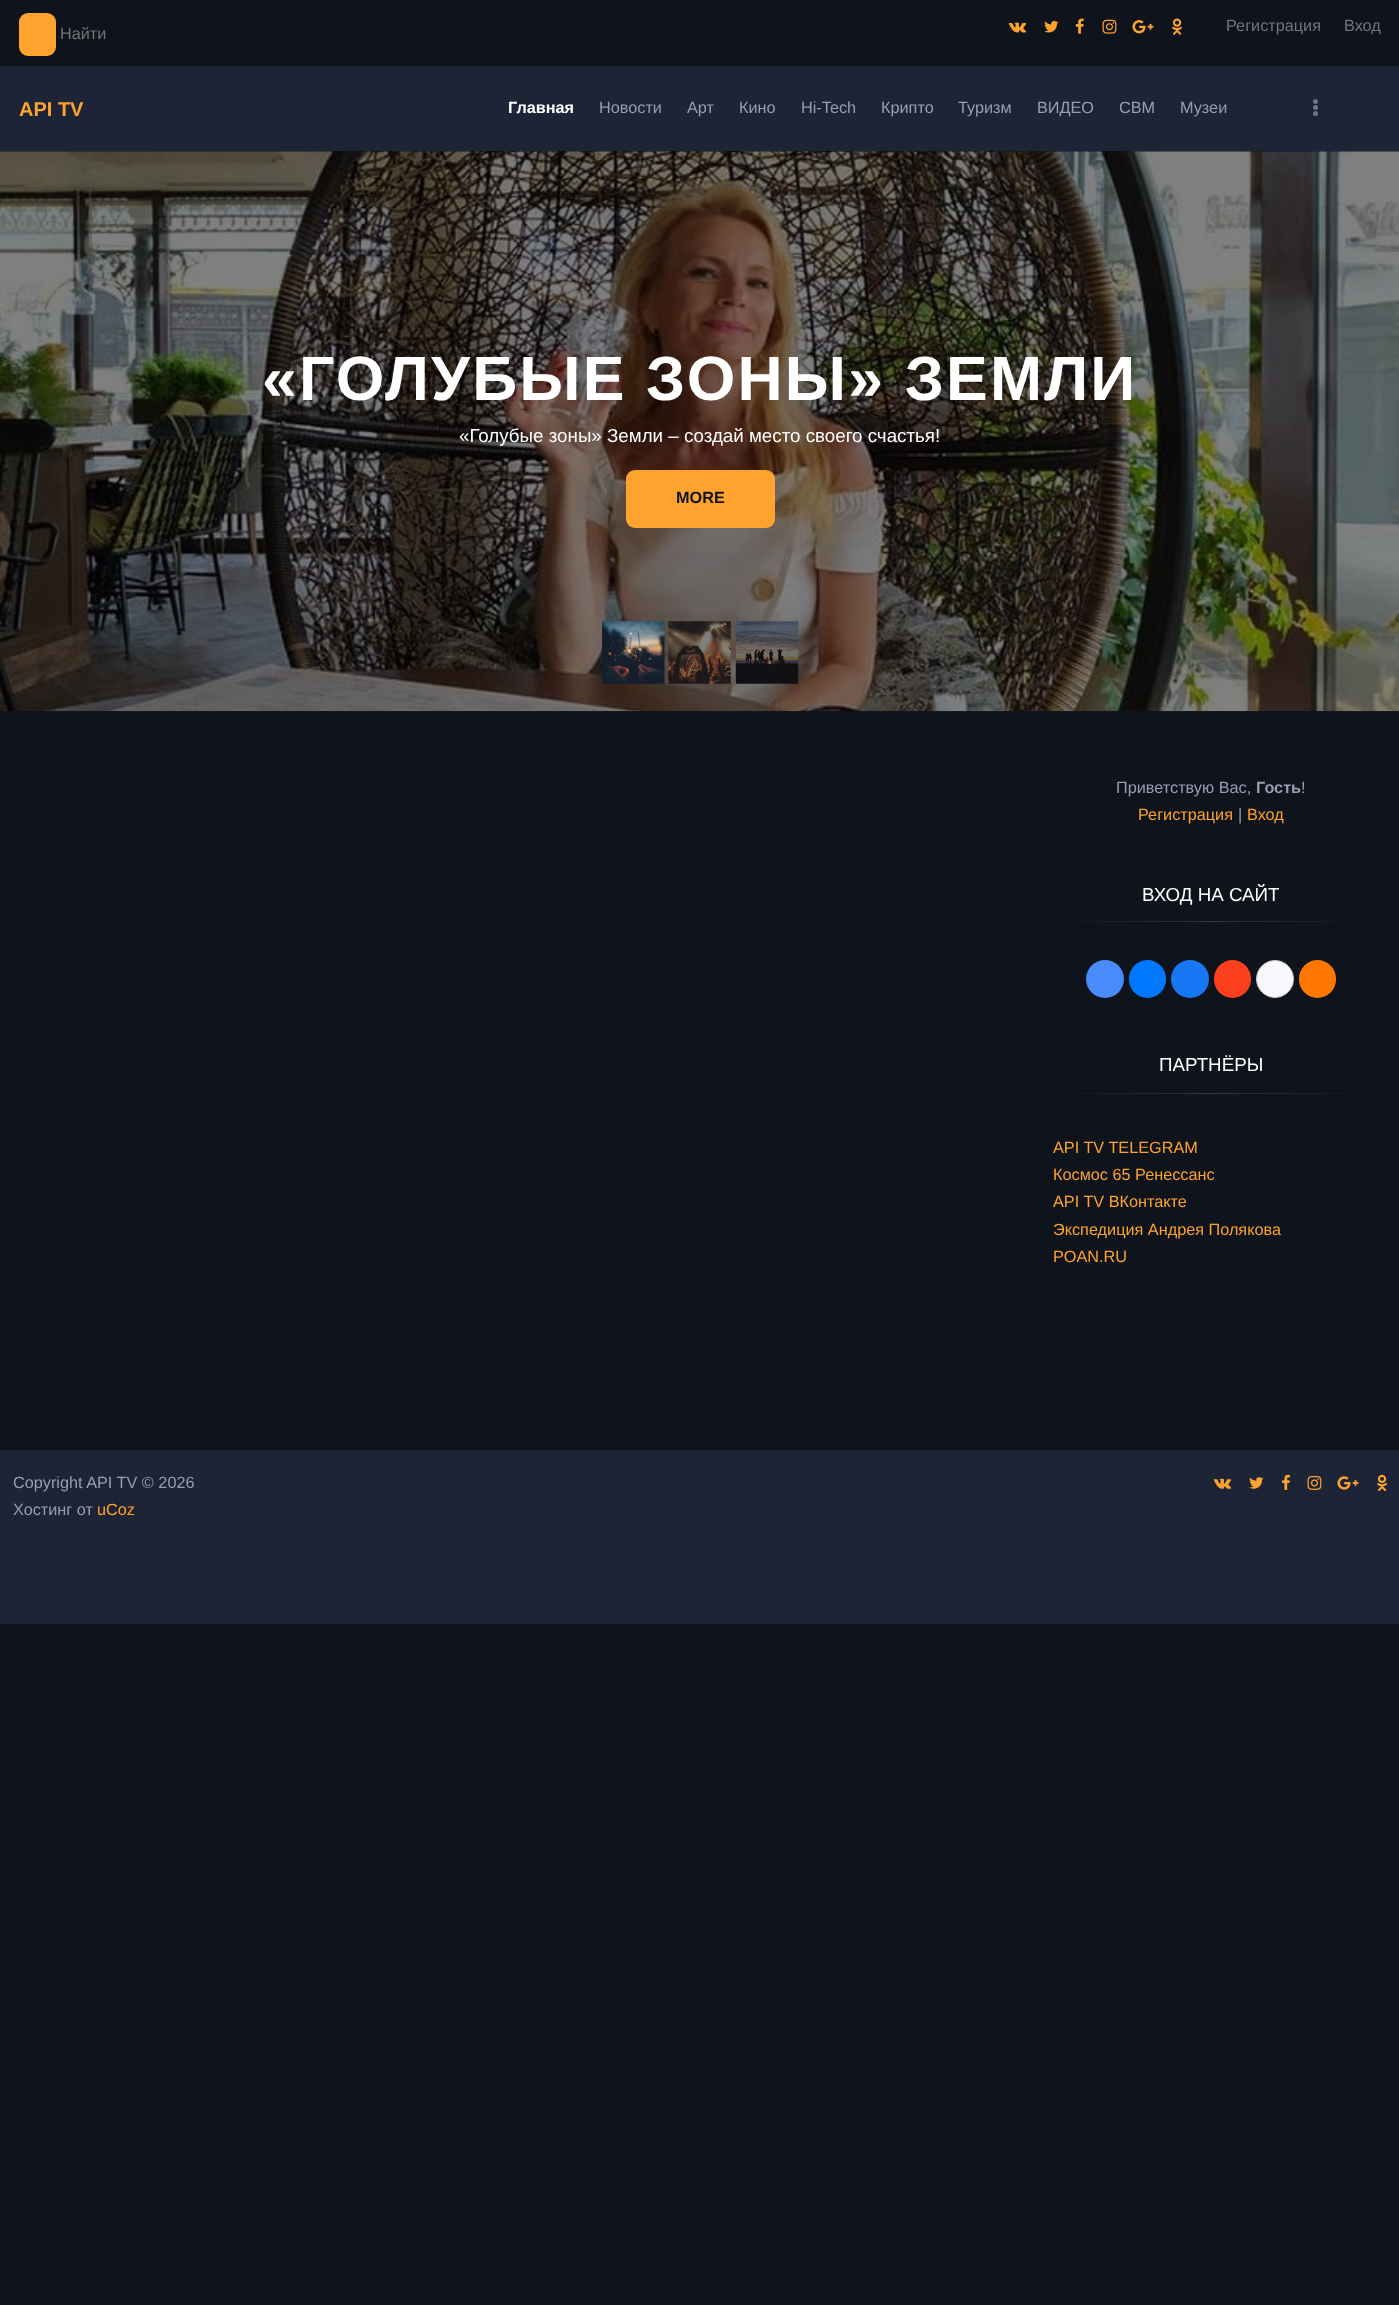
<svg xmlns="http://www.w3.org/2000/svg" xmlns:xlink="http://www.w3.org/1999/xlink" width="1399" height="2305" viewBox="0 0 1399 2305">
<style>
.cls-1{font:16.25px Arimo;fill:#757575}
.cls-2{font:16.25px Arimo;fill:#717580}
.cls-3{font:bold 20px Arimo;fill:#fea32e}
.cls-4{font:bold 16.25px Arimo;fill:#ffffff}
.cls-5{font:16.25px Arimo;fill:#989eb2}
.cls-6{font:bold 62.5px Arimo;letter-spacing:2.2px;fill:#ffffff}
.cls-7{font:18.75px Arimo;fill:#ffffff}
.cls-8{font:bold 16.25px Arimo;fill:#0f131c}
.cls-9{font:bold 16.25px Arimo;fill:#989eb2}
.cls-10{font:16.25px Arimo;fill:#fea32e}
</style>
<defs>
<linearGradient id="g1" gradientUnits="userSpaceOnUse" x1="1054" y1="922" x2="1369" y2="922"><stop offset="0" stop-color="#0f131c"/><stop offset="0.5" stop-color="#2b364f"/><stop offset="1" stop-color="#0f131c"/></linearGradient>
<linearGradient id="g2" gradientUnits="userSpaceOnUse" x1="1054" y1="1093" x2="1369" y2="1093"><stop offset="0" stop-color="#0f131c"/><stop offset="0.5" stop-color="#2b364f"/><stop offset="1" stop-color="#0f131c"/></linearGradient>
</defs>
<rect width="100%" height="100%" fill="#0f131c"/>
<rect fill="#1d2436" x="0" y="66" width="1399" height="85"/>
<rect fill="#fea32e" x="19" y="13" width="37" height="43" rx="9"/>
<image xlink:href="image0.png" x="1008" y="22" width="19" height="11"/>
<image xlink:href="image1.png" x="1044" y="20" width="15" height="13"/>
<image xlink:href="image2.png" x="1075" y="18" width="9" height="16"/>
<image xlink:href="image3.png" x="1102" y="19" width="15" height="15"/>
<image xlink:href="image4.png" x="1132" y="20" width="22" height="14"/>
<image xlink:href="image5.png" x="1172" y="18" width="10" height="17"/>
<circle fill="#717580" cx="1315.5" cy="101.5" r="2.5"/>
<circle fill="#717580" cx="1315.5" cy="107.5" r="2.5"/>
<circle fill="#717580" cx="1315.5" cy="113.5" r="2.5"/>
<image xlink:href="image6.png" x="0" y="151" width="1399" height="561"/>
<rect fill="#fea32e" x="626" y="470" width="149" height="58" rx="9"/>
<image xlink:href="image7.png" x="602" y="621" width="63" height="63"/>
<image xlink:href="image8.png" x="668" y="621" width="63" height="63"/>
<image xlink:href="image9.png" x="735" y="621" width="64" height="63"/>
<rect fill="url(#g1)" x="1054" y="921" width="315" height="1"/>
<circle fill="#498bfa" cx="1105" cy="979" r="19"/>
<rect fill="#0077ff" x="1129" y="960" width="37" height="38" rx="18.5"/>
<circle fill="#1877f2" cx="1190" cy="979" r="19"/>
<rect fill="#fc3f1d" x="1214" y="960" width="37" height="38" rx="18.5"/>
<circle fill="#f8f8fc" stroke="#c4c4c4" cx="1275" cy="979" r="18.5"/>
<rect fill="#ff7700" x="1299" y="960" width="37" height="38" rx="18.5"/>
<rect fill="url(#g2)" x="1054" y="1093" width="315" height="1"/>
<rect fill="#1d2436" x="0" y="1450" width="1399" height="174"/>
<image xlink:href="image10.png" x="1213" y="1478" width="19" height="11"/>
<image xlink:href="image11.png" x="1249" y="1477" width="15" height="12"/>
<image xlink:href="image12.png" x="1282" y="1474" width="8" height="16"/>
<image xlink:href="image13.png" x="1307" y="1476" width="15" height="14"/>
<image xlink:href="image14.png" x="1337" y="1476" width="22" height="14"/>
<image xlink:href="image15.png" x="1377" y="1474" width="10" height="17"/>
<text class="cls-1" x="60" y="39">Найти</text>
<text class="cls-2" x="1226" y="31">Регистрация</text>
<text class="cls-2" x="1344" y="31">Вход</text>
<text class="cls-3" x="19" y="116">API TV</text>
<text class="cls-4" x="508" y="113">Главная</text>
<text class="cls-5" x="599" y="113">Новости</text>
<text class="cls-5" x="687" y="113">Арт</text>
<text class="cls-5" x="739" y="113">Кино</text>
<text class="cls-5" x="801" y="113">Hi-Tech</text>
<text class="cls-5" x="881" y="113">Крипто</text>
<text class="cls-5" x="958" y="113">Туризм</text>
<text class="cls-5" x="1037" y="113">ВИДЕО</text>
<text class="cls-5" x="1119" y="113">СВМ</text>
<text class="cls-5" x="1180" y="113">Музеи</text>
<text class="cls-6" x="262" y="400">«ГОЛУБЫЕ ЗОНЫ» ЗЕМЛИ</text>
<text class="cls-7" x="459" y="442">«Голубые зоны» Земли – создай место своего счастья!</text>
<text class="cls-8" x="676" y="503">MORE</text>
<text class="cls-5" x="1116" y="793">Приветствую Вас,</text>
<text class="cls-9" x="1256" y="793">Гость</text>
<text class="cls-5" x="1301" y="793">!</text>
<text class="cls-10" x="1138" y="820">Регистрация</text>
<text class="cls-5" x="1238" y="820">|</text>
<text class="cls-10" x="1247" y="820">Вход</text>
<text class="cls-7" x="1142" y="901">ВХОД НА САЙТ</text>
<text class="cls-7" x="1159" y="1071">ПАРТНЁРЫ</text>
<text class="cls-10"><tspan x="1053" y="1153">API TV TELEGRAM</tspan><tspan x="1053" y="1180">Космос 65 Ренессанс</tspan><tspan x="1053" y="1207">API TV ВКонтакте</tspan><tspan x="1053" y="1235">Экспедиция Андрея Полякова</tspan><tspan x="1053" y="1262">POAN.RU</tspan></text>
<text class="cls-5"><tspan x="13" y="1488">Copyright API TV © 2026</tspan><tspan x="13" y="1515">Хостинг от</tspan></text>
<text class="cls-10" x="97" y="1515">uCoz</text>
</svg>
